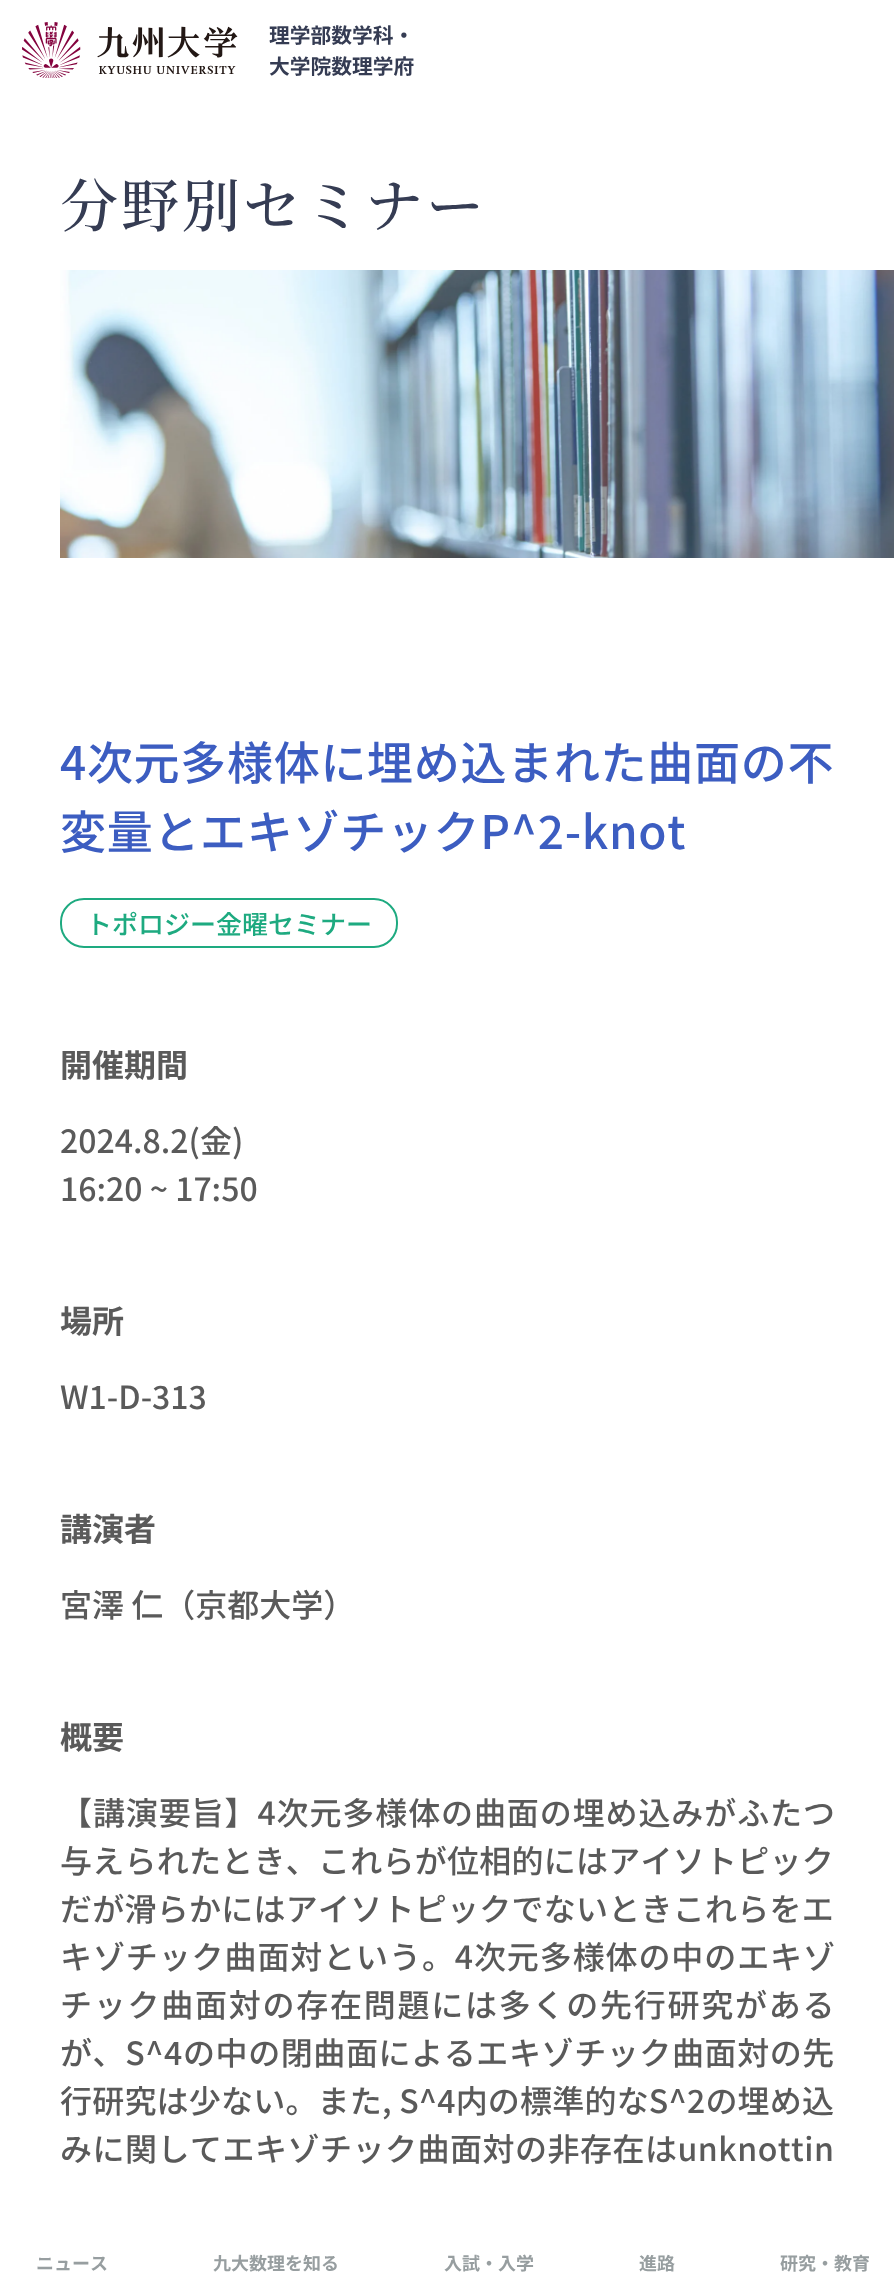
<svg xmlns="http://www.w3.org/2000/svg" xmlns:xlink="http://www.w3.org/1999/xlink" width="894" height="2283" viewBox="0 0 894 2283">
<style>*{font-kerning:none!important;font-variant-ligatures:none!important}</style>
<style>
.cls-1{font:bold 20.75px Noto Sans JP;fill:#353c53}
.cls-2{font:500 58px Noto Serif JP;letter-spacing:3px;fill:#353c53}
.cls-3{font:500 46px Noto Sans JP;letter-spacing:0.7px;fill:#3c5dc1}
.cls-4{font:500 26px Noto Sans JP;fill:#1eaa80}
.cls-5{font:bold 32px Noto Sans JP;fill:#5a5a5a}
.cls-6{font:500 32px Noto Sans JP;fill:#5a5a5a}
.cls-7{font:500 32px Noto Sans JP;letter-spacing:0.9px;fill:#5a5a5a}
.cls-8{font:500 32px Noto Sans JP;letter-spacing:0.25px;fill:#5a5a5a}
.cls-9{font:500 32px Noto Sans JP;letter-spacing:1.75px;fill:#5a5a5a}
.cls-10{font:500 32px Noto Sans JP;letter-spacing:0.6px;fill:#5a5a5a}
.cls-11{font:500 32px Noto Sans JP;letter-spacing:0.2px;fill:#5a5a5a}
.cls-12{font:500 32px Noto Sans JP;letter-spacing:0.5px;fill:#5a5a5a}
.cls-13{font:bold 18px Noto Sans JP;fill:#979ea0}
</style>
<rect width="100%" height="100%" fill="#ffffff"/>
<image xlink:href="image0.png" x="22" y="22" width="216" height="56"/>
<image xlink:href="image1.png" x="60" y="270" width="834" height="288"/>
<rect fill="none" stroke="#1eaa80" stroke-width="2" x="61" y="899" width="336" height="48" rx="23"/>
<text class="cls-1"><tspan x="269" y="43">理学部数学科・</tspan><tspan x="269" y="74">大学院数理学府</tspan></text>
<text class="cls-2" x="60" y="227">分野別セミナー</text>
<text class="cls-3"><tspan x="60" y="780">4次元多様体に埋め込まれた曲面の不</tspan><tspan x="60" y="849">変量とエキゾチックP^2-knot</tspan></text>
<text class="cls-4" x="86" y="934">トポロジー金曜セミナー</text>
<text class="cls-5" x="60" y="1077">開催期間</text>
<text class="cls-6"><tspan x="60" y="1153">2024.8.2(金)</tspan><tspan x="60" y="1201">16:20 ~ 17:50</tspan></text>
<text class="cls-5" x="60" y="1333">場所</text>
<text class="cls-6" x="60" y="1409">W1-D-313</text>
<text class="cls-5" x="60" y="1541">講演者</text>
<text class="cls-6" x="60" y="1617">宮澤 仁（京都大学）</text>
<text class="cls-5" x="60" y="1749">概要</text>
<text class="cls-7" x="60" y="1825">【講演要旨】4次元多様体の曲面の埋め込みがふたつ</text>
<text class="cls-8"><tspan x="60" y="1873">与えられたとき、これらが位相的にはアイソトピック</tspan><tspan x="60" y="1921">だが滑らかにはアイソトピックでないときこれらをエ</tspan></text>
<text class="cls-7" x="60" y="1969">キゾチック曲面対という。4次元多様体の中のエキゾ</text>
<text class="cls-9" x="60" y="2017">チック曲面対の存在問題には多くの先行研究がある</text>
<text class="cls-10" x="60" y="2065">が、S^4の中の閉曲面によるエキゾチック曲面対の先</text>
<text class="cls-11" x="60" y="2113">行研究は少ない。また, S^4内の標準的なS^2の埋め込</text>
<text class="cls-12" x="60" y="2161">みに関してエキゾチック曲面対の非存在はunknottin</text>
<text class="cls-13" x="36" y="2270">ニュース</text>
<text class="cls-13" x="213" y="2270">九大数理を知る</text>
<text class="cls-13" x="444" y="2270">入試・入学</text>
<text class="cls-13" x="639" y="2270">進路</text>
<text class="cls-13" x="780" y="2270">研究・教育</text>
</svg>
